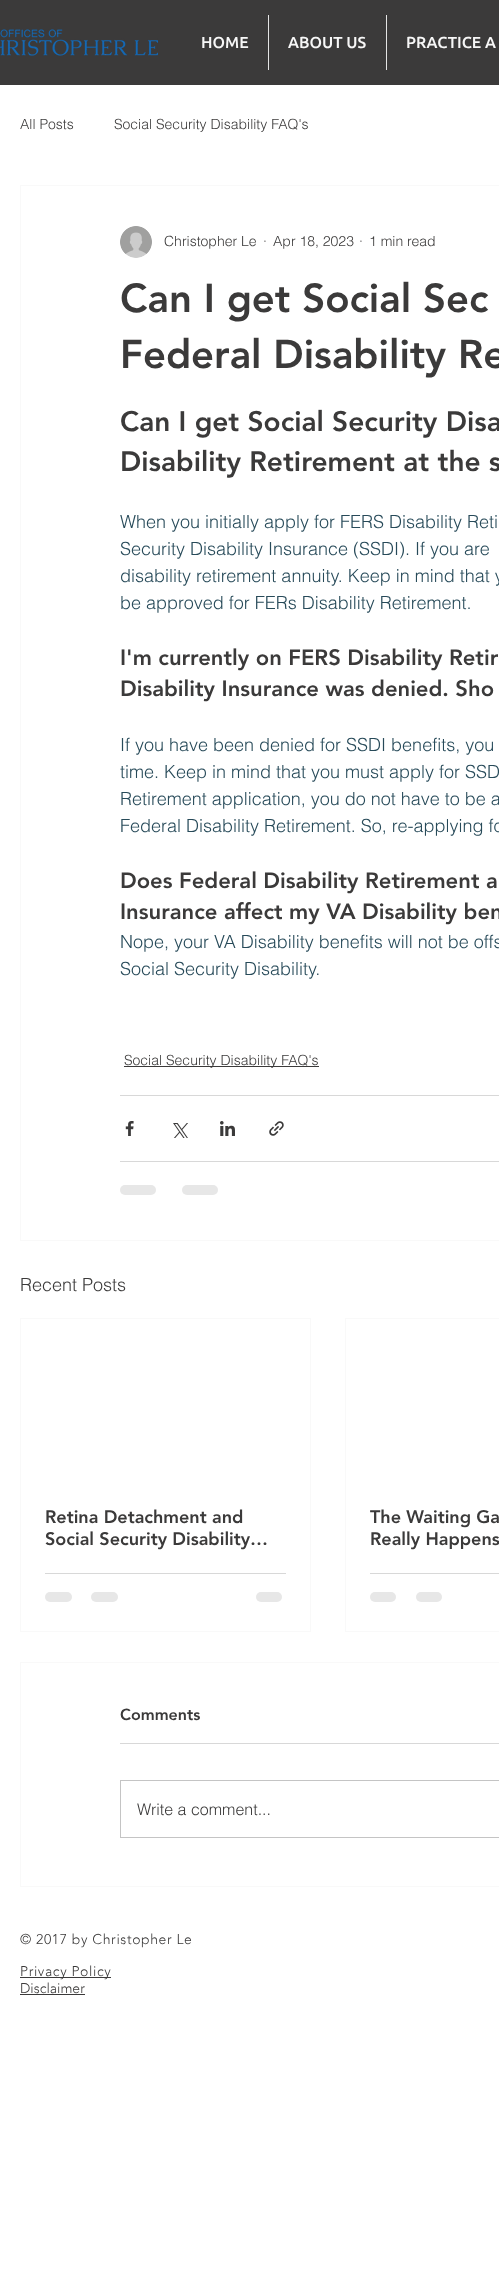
<svg xmlns="http://www.w3.org/2000/svg" xmlns:xlink="http://www.w3.org/1999/xlink" width="499" height="2279" viewBox="0 0 499 2279">
<style>
.cls-1{font:500 16px Ubuntu;fill:#f7f7f7}
.cls-2{font:300 14px helvetica;fill:#3b3a3a}
.cls-3{font:900 40px 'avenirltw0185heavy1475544';fill:#3b3a3a}
.cls-4{font:900 28px 'avenirltw0185heavy1475544';fill:#3b3a3a}
.cls-5{font:300 18px helvetica;fill:#274a59}
.cls-6{font:900 22px 'avenirltw0185heavy1475544';fill:#3b3a3a}
.cls-7{font:300 18px helvetica;fill:#3b3a3a}
.cls-8{font:900 18px 'avenirltw0185heavy1475544';fill:#3b3a3a}
.cls-9{font:900 16px 'avenirltw0185heavy1475544';fill:#3b3a3a}
.cls-10{font:300 16px helvetica;fill:#3b3a3a}
.cls-11{font:300 14px 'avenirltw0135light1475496';letter-spacing:0.6px;fill:#3b3a3a}
.cls-12{font:300 14px 'avenirltw0135light1475496';fill:#3b3a3a}
</style>
<defs>
<clipPath id="clip1"><rect x="370" y="1506" width="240" height="44"/></clipPath>
</defs>
<rect width="100%" height="100%" fill="#ffffff"/>
<rect fill="#3b3a3a" x="0" y="0" width="499" height="85"/>
<image xlink:href="image0.png" x="0" y="29" width="158" height="27"/>
<rect fill="#e4e4e4" x="268" y="15" width="1" height="55"/>
<rect fill="#e4e4e4" x="386" y="15" width="1" height="55"/>
<rect fill="none" stroke="#f9f9f9" x="20.5" y="185.5" width="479" height="1055"/>
<image xlink:href="image1.png" x="120" y="226" width="32" height="32"/>
<rect fill="#3b3a3a" x="124" y="1066" width="195" height="1"/>
<rect fill="#d8d8d8" x="120" y="1095" width="379" height="1"/>
<image xlink:href="image2.png" x="125" y="1121" width="9" height="15"/>
<image xlink:href="image3.png" x="173" y="1123" width="15" height="15"/>
<image xlink:href="image4.png" x="220" y="1121" width="15" height="15"/>
<image xlink:href="image5.png" x="269" y="1121" width="15" height="15"/>
<rect fill="#d8d8d8" x="120" y="1161" width="379" height="1"/>
<rect fill="#e7e7e7" x="120" y="1185" width="36" height="10" rx="5"/>
<rect fill="#e7e7e7" x="182" y="1185" width="36" height="10" rx="5"/>
<rect fill="none" stroke="#f9f9f9" x="20.5" y="1318.5" width="290" height="313"/>
<rect fill="#d8d8d8" x="45" y="1573" width="241" height="1"/>
<rect fill="#e7e7e7" x="45" y="1592" width="27" height="10" rx="5"/>
<rect fill="#e7e7e7" x="91" y="1592" width="27" height="10" rx="5"/>
<rect fill="#e7e7e7" x="256" y="1592" width="26" height="10" rx="5"/>
<rect fill="none" stroke="#f9f9f9" x="345.5" y="1318.5" width="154" height="313"/>
<rect fill="#d8d8d8" x="370" y="1573" width="129" height="1"/>
<rect fill="#e7e7e7" x="370" y="1592" width="26" height="10" rx="5"/>
<rect fill="#e7e7e7" x="416" y="1592" width="26" height="10" rx="5"/>
<rect fill="none" stroke="#f9f9f9" x="20.5" y="1662.5" width="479" height="224"/>
<rect fill="#d8d8d8" x="120" y="1743" width="379" height="1"/>
<rect fill="none" stroke="#c4c4c4" x="120.5" y="1780.5" width="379" height="57"/>
<rect fill="#3b3a3a" x="20" y="1977" width="91" height="1"/>
<rect fill="#3b3a3a" x="20" y="1994" width="65" height="1"/>
<text class="cls-1" x="201" y="48">HOME</text>
<text class="cls-1" x="288" y="48">ABOUT US</text>
<text class="cls-1" x="406" y="48">PRACTICE A</text>
<text class="cls-2" x="20" y="129">All Posts</text>
<text class="cls-2" x="114" y="129">Social Security Disability FAQ's</text>
<text class="cls-2" x="164" y="246">Christopher Le</text>
<text class="cls-2" x="263" y="246">·</text>
<text class="cls-2" x="273" y="246">Apr 18, 2023</text>
<text class="cls-2" x="359" y="246">·</text>
<text class="cls-2" x="369" y="246">1 min read</text>
<text class="cls-3"><tspan x="120" y="312">Can I get Social Sec</tspan><tspan x="120" y="368">Federal Disability Re</tspan></text>
<text class="cls-4"><tspan x="120" y="431">Can I get Social Security Disa</tspan><tspan x="120" y="471">Disability Retirement at the s</tspan></text>
<text class="cls-5"><tspan x="120" y="528">When you initially apply for FERS Disability Reti</tspan><tspan x="120" y="555">Security Disability Insurance (SSDI). If you are</tspan><tspan x="120" y="582">disability retirement annuity. Keep in mind that y</tspan><tspan x="120" y="609">be approved for FERs Disability Retirement.</tspan></text>
<text class="cls-6"><tspan x="120" y="665">I'm currently on FERS Disability Retir</tspan><tspan x="120" y="696">Disability Insurance was denied. Sho</tspan></text>
<text class="cls-5"><tspan x="120" y="751">If you have been denied for SSDI benefits, you</tspan><tspan x="120" y="778">time. Keep in mind that you must apply for SSD</tspan><tspan x="120" y="805">Retirement application, you do not have to be a</tspan><tspan x="120" y="832">Federal Disability Retirement. So, re-applying fo</tspan></text>
<text class="cls-6"><tspan x="120" y="888">Does Federal Disability Retirement a</tspan><tspan x="120" y="919">Insurance affect my VA Disability ben</tspan></text>
<text class="cls-5"><tspan x="120" y="948">Nope, your VA Disability benefits will not be offs</tspan><tspan x="120" y="975">Social Security Disability.</tspan></text>
<text class="cls-2" x="124" y="1065">Social Security Disability FAQ's</text>
<text class="cls-7" x="20" y="1291">Recent Posts</text>
<text class="cls-8"><tspan x="45" y="1523">Retina Detachment and</tspan><tspan x="45" y="1545">Social Security Disability…</tspan></text>
<g clip-path="url(#clip1)">
<text class="cls-8" x="370" y="1523">The Waiting Ga</text>
</g>
<text class="cls-8" x="370" y="1545">Really Happens</text>
<text class="cls-9" x="120" y="1720">Comments</text>
<text class="cls-10" x="137" y="1815">Write a comment...</text>
<text class="cls-11" x="20" y="1944">© 2017 by Christopher Le</text>
<text class="cls-11" x="20" y="1976">Privacy Policy</text>
<text class="cls-12" x="20" y="1993">Disclaimer</text>
</svg>
